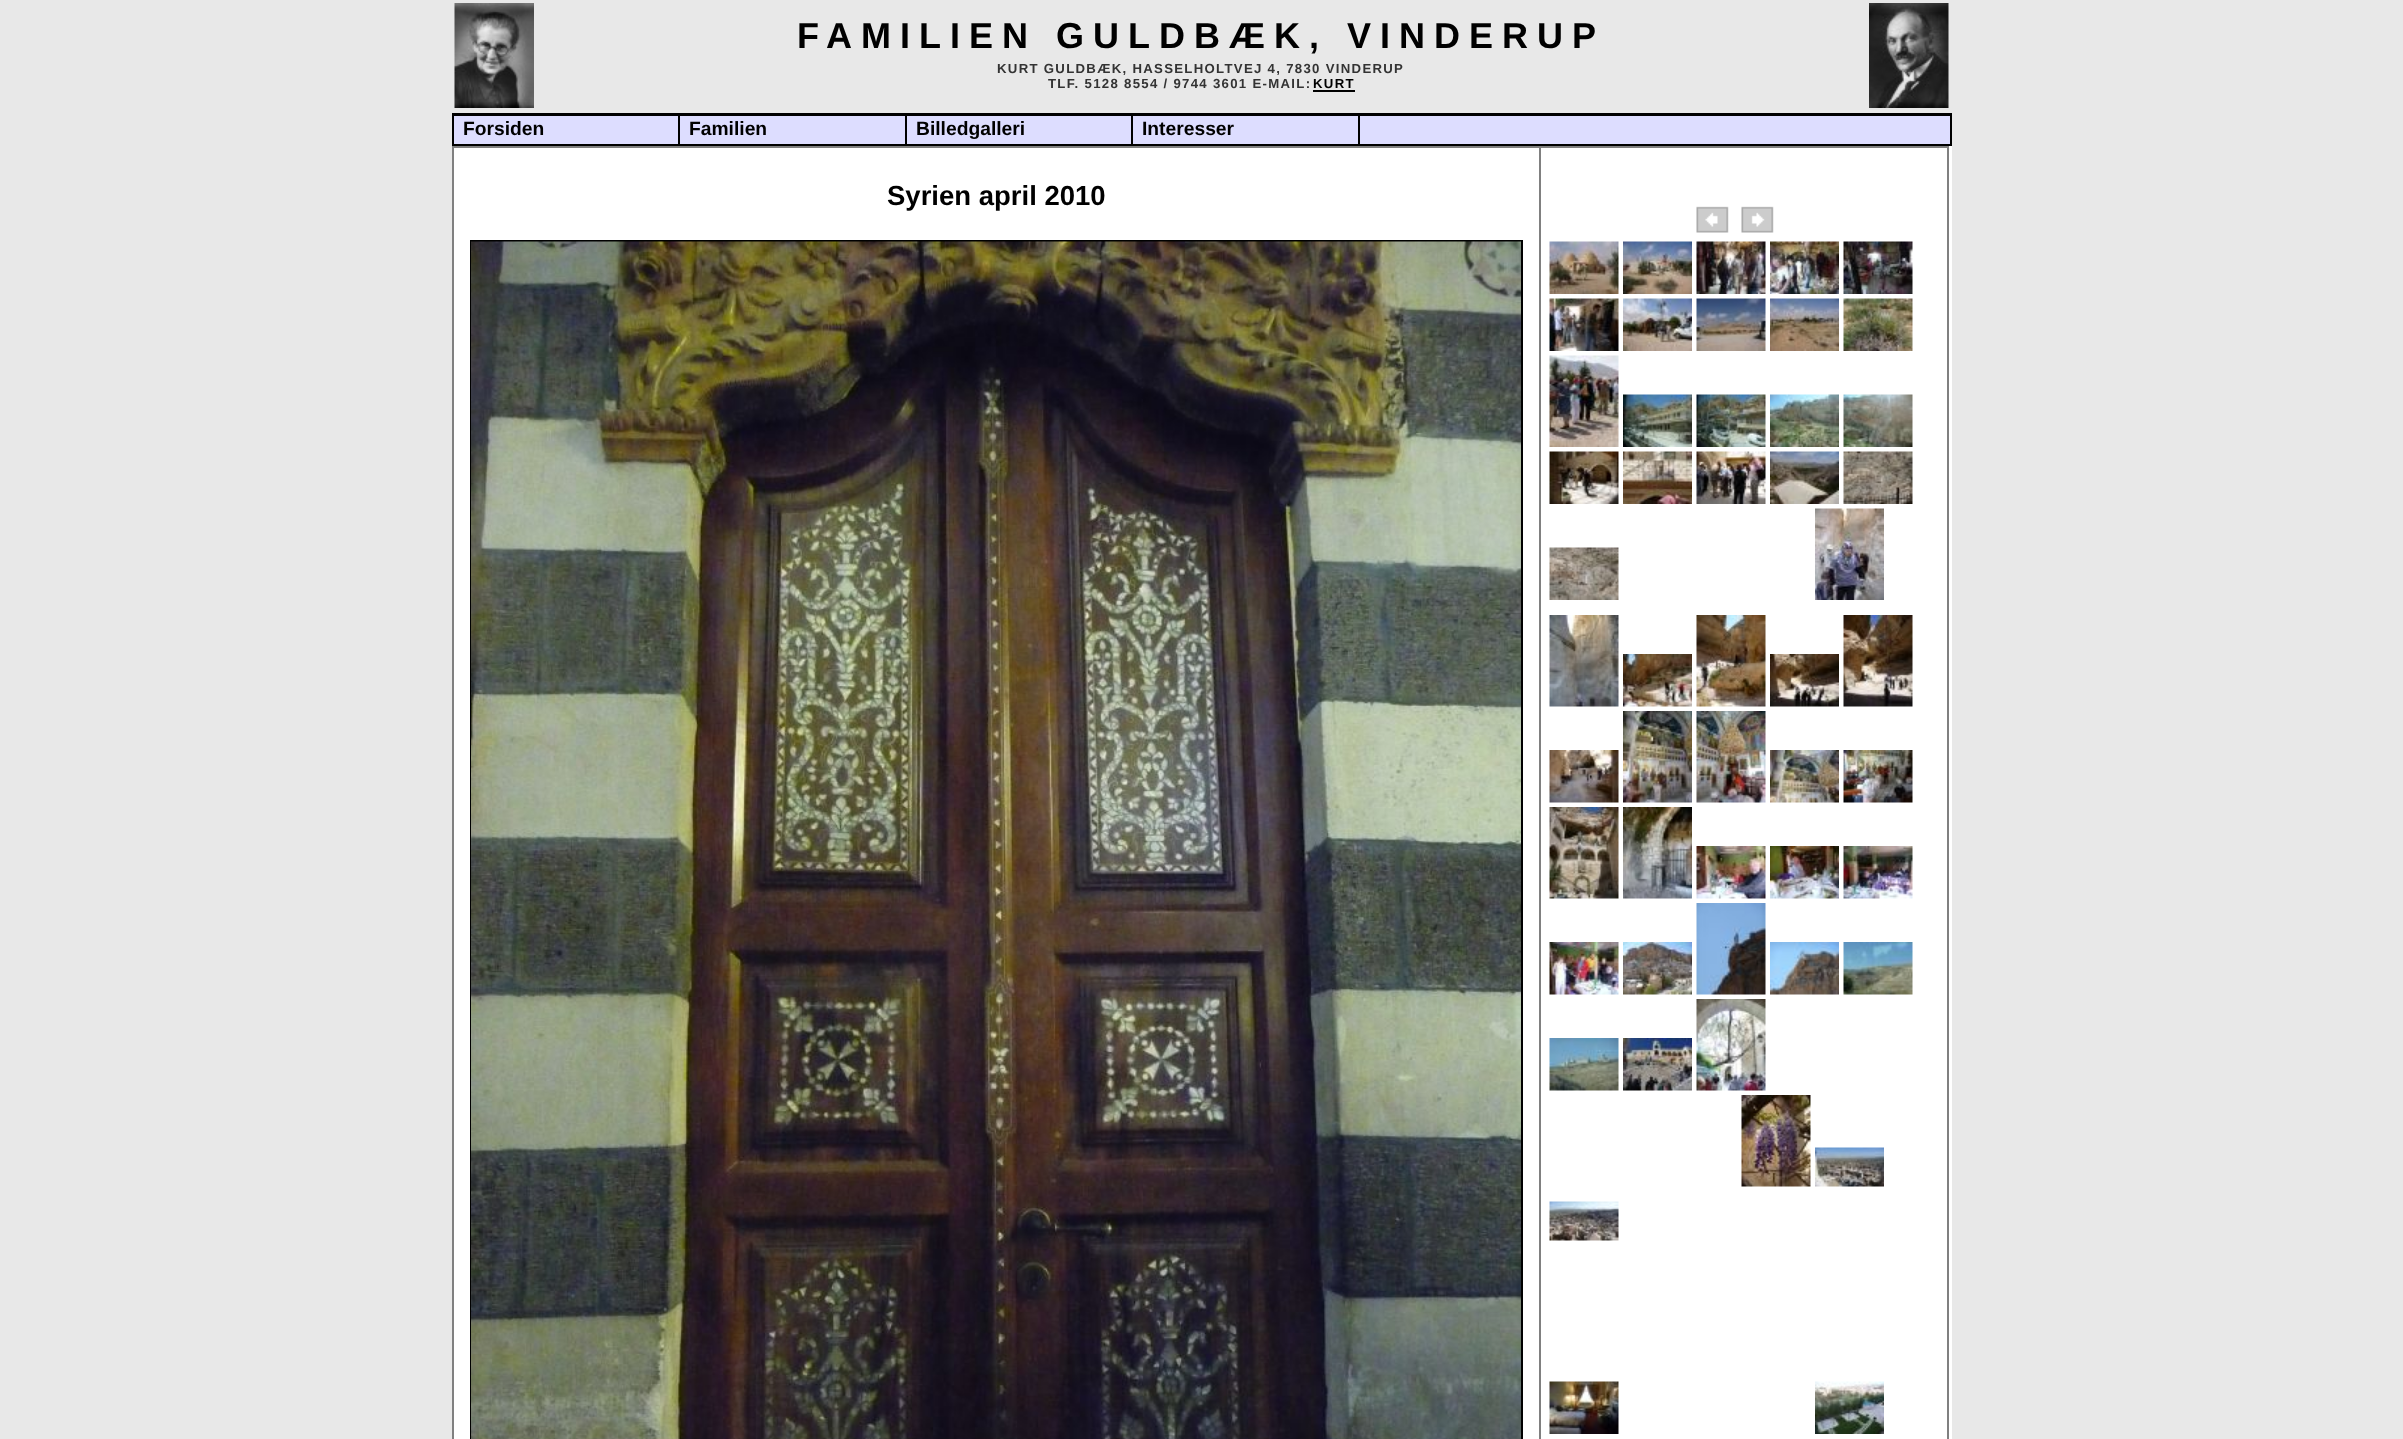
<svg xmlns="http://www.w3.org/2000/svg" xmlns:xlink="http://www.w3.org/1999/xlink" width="2403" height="1439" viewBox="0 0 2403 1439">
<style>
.cls-1{font:bold 36px Liberation Sans;letter-spacing:9px;fill:#000000}
.cls-2{font:bold 13.2px Liberation Sans;letter-spacing:1.3px;fill:#333333}
.cls-3{font:bold 13.2px Liberation Sans;letter-spacing:1.3px;fill:#000000}
.cls-4{font:bold 19.25px Liberation Sans;fill:#000000}
.cls-5{font:bold 27.5px Liberation Sans;fill:#000000}
</style>
<rect width="100%" height="100%" fill="#e8e8e8"/>
<image xlink:href="image0.png" x="454" y="3" width="80" height="105"/>
<rect fill="#000000" x="1313" y="90" width="42" height="2"/>
<image xlink:href="image1.png" x="1869" y="3" width="80" height="105"/>
<rect fill="#ffffff" x="454" y="146" width="1498" height="1293"/>
<rect fill="#ddddff" x="454" y="116" width="1496" height="28"/>
<rect fill="none" stroke="#000000" stroke-width="2" x="453" y="114" width="1498" height="31"/>
<rect fill="#000000" x="453" y="115" width="1497" height="1"/>
<rect fill="#000000" x="678" y="116" width="2" height="30"/>
<rect fill="#000000" x="905" y="116" width="2" height="30"/>
<rect fill="#000000" x="1131" y="116" width="2" height="30"/>
<rect fill="#000000" x="1358" y="116" width="2" height="30"/>
<rect fill="#808080" x="452" y="146" width="1497" height="2"/>
<rect fill="#808080" x="1947" y="146" width="2" height="1293"/>
<rect fill="#808080" x="452" y="146" width="2" height="1293"/>
<rect fill="none" stroke="#000000" stroke-width="2" x="471" y="241" width="1051" height="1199"/>
<image xlink:href="image2.png" x="471" y="241" width="1050" height="1198"/>
<rect fill="#808080" x="1539" y="146" width="2" height="1293"/>
<image xlink:href="image3.png" x="1696" y="206" width="33" height="27"/>
<image xlink:href="image4.png" x="1741" y="206" width="33" height="27"/>
<image xlink:href="image5.png" x="1549" y="241" width="70" height="53"/>
<image xlink:href="image6.png" x="1623" y="241" width="69" height="53"/>
<image xlink:href="image7.png" x="1696" y="241" width="70" height="53"/>
<image xlink:href="image8.png" x="1770" y="241" width="69" height="53"/>
<image xlink:href="image9.png" x="1843" y="241" width="70" height="53"/>
<image xlink:href="image10.png" x="1549" y="298" width="70" height="53"/>
<image xlink:href="image11.png" x="1623" y="298" width="69" height="53"/>
<image xlink:href="image12.png" x="1696" y="298" width="70" height="53"/>
<image xlink:href="image13.png" x="1770" y="298" width="69" height="53"/>
<image xlink:href="image14.png" x="1843" y="298" width="70" height="53"/>
<image xlink:href="image15.png" x="1549" y="355" width="70" height="92"/>
<image xlink:href="image16.png" x="1623" y="394" width="69" height="53"/>
<image xlink:href="image17.png" x="1696" y="394" width="70" height="53"/>
<image xlink:href="image18.png" x="1770" y="394" width="69" height="53"/>
<image xlink:href="image19.png" x="1843" y="394" width="70" height="53"/>
<image xlink:href="image20.png" x="1549" y="451" width="70" height="53"/>
<image xlink:href="image21.png" x="1623" y="451" width="69" height="53"/>
<image xlink:href="image22.png" x="1696" y="451" width="70" height="53"/>
<image xlink:href="image23.png" x="1770" y="451" width="69" height="53"/>
<image xlink:href="image24.png" x="1843" y="451" width="70" height="53"/>
<image xlink:href="image25.png" x="1549" y="547" width="70" height="53"/>
<image xlink:href="image26.png" x="1815" y="508" width="69" height="92"/>
<image xlink:href="image27.png" x="1549" y="615" width="70" height="92"/>
<image xlink:href="image28.png" x="1623" y="654" width="69" height="53"/>
<image xlink:href="image29.png" x="1696" y="615" width="70" height="92"/>
<image xlink:href="image30.png" x="1770" y="654" width="69" height="53"/>
<image xlink:href="image31.png" x="1843" y="615" width="70" height="92"/>
<image xlink:href="image32.png" x="1549" y="750" width="70" height="53"/>
<image xlink:href="image33.png" x="1623" y="711" width="69" height="92"/>
<image xlink:href="image34.png" x="1696" y="711" width="70" height="92"/>
<image xlink:href="image35.png" x="1770" y="750" width="69" height="53"/>
<image xlink:href="image36.png" x="1843" y="750" width="70" height="53"/>
<image xlink:href="image37.png" x="1549" y="807" width="70" height="92"/>
<image xlink:href="image38.png" x="1623" y="807" width="69" height="92"/>
<image xlink:href="image39.png" x="1696" y="846" width="70" height="53"/>
<image xlink:href="image40.png" x="1770" y="846" width="69" height="53"/>
<image xlink:href="image41.png" x="1843" y="846" width="70" height="53"/>
<image xlink:href="image42.png" x="1549" y="942" width="70" height="53"/>
<image xlink:href="image43.png" x="1623" y="942" width="69" height="53"/>
<image xlink:href="image44.png" x="1696" y="903" width="70" height="92"/>
<image xlink:href="image45.png" x="1770" y="942" width="69" height="53"/>
<image xlink:href="image46.png" x="1843" y="942" width="70" height="53"/>
<image xlink:href="image47.png" x="1549" y="1038" width="70" height="53"/>
<image xlink:href="image48.png" x="1623" y="1038" width="69" height="53"/>
<image xlink:href="image49.png" x="1696" y="999" width="70" height="92"/>
<image xlink:href="image50.png" x="1741" y="1095" width="70" height="92"/>
<image xlink:href="image51.png" x="1815" y="1147" width="69" height="40"/>
<image xlink:href="image52.png" x="1549" y="1201" width="70" height="40"/>
<image xlink:href="image53.png" x="1549" y="1381" width="70" height="53"/>
<image xlink:href="image54.png" x="1815" y="1381" width="69" height="53"/>
<text class="cls-1" x="797" y="48">FAMILIEN GULDBÆK, VINDERUP</text>
<text class="cls-2" x="997" y="73">KURT GULDBÆK, HASSELHOLTVEJ 4, 7830 VINDERUP</text>
<text class="cls-2" x="1048" y="88">TLF. 5128 8554 / 9744 3601 E-MAIL:</text>
<text class="cls-3" x="1313" y="88">KURT</text>
<text class="cls-4" x="463" y="135">Forsiden</text>
<text class="cls-4" x="689" y="135">Familien</text>
<text class="cls-4" x="916" y="135">Billedgalleri</text>
<text class="cls-4" x="1142" y="135">Interesser</text>
<text class="cls-5" x="887" y="205">Syrien april 2010</text>
</svg>
